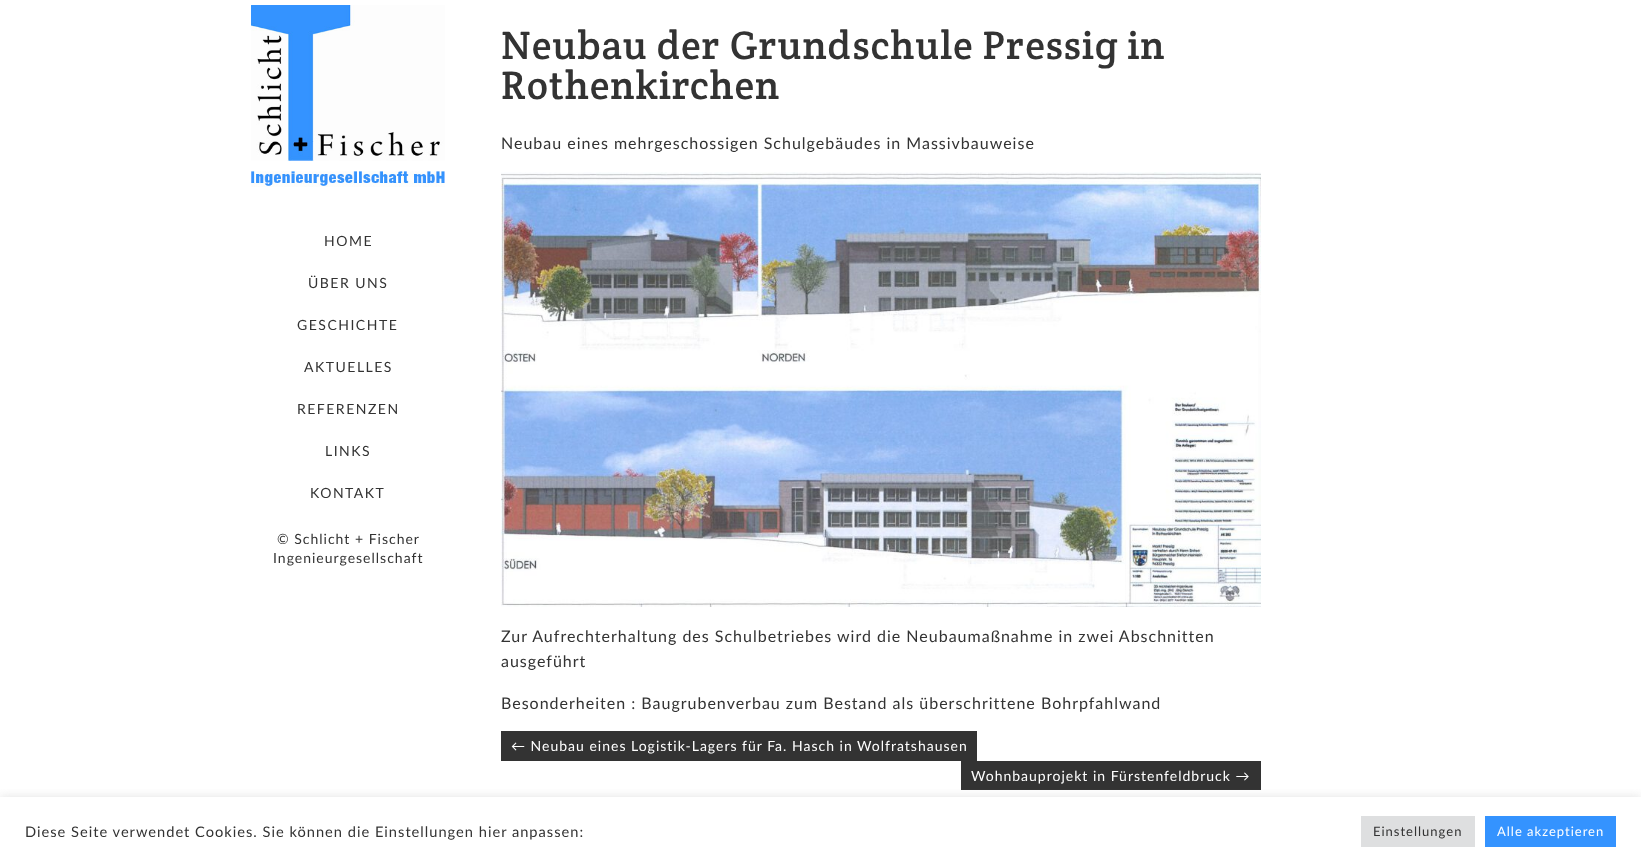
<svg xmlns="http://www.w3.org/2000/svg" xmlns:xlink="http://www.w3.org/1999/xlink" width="1641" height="866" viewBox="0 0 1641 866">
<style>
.cls-1{font:14px Lato;letter-spacing:1.5px;fill:#333333}
.cls-2{font:14px Lato;letter-spacing:1px;fill:#333333}
.cls-3{font:40px Crete Round;letter-spacing:1px;fill:#333333}
.cls-4{font:16px Lato;letter-spacing:1px;fill:#333333}
.cls-5{font:14px Lato;letter-spacing:1px;fill:#ffffff}
.cls-6{font:14.65px Lato;letter-spacing:1px;fill:#333333}
.cls-7{font:13px Lato;letter-spacing:1px;fill:#333333}
.cls-8{font:13px Lato;letter-spacing:1px;fill:#ffffff}
</style>
<defs>
<clipPath id="clip1"><rect x="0" y="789" width="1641" height="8"/></clipPath>
</defs>
<rect width="100%" height="100%" fill="#ffffff"/>
<image xlink:href="image0.png" x="251" y="5" width="194" height="182"/>
<image xlink:href="image1.png" x="501" y="172" width="760" height="435"/>
<rect fill="#333333" x="501" y="731" width="476" height="30"/>
<rect fill="#333333" x="961" y="761" width="300" height="29"/>
<g clip-path="url(#clip1)">
<rect fill="#acabab" fill-opacity="0.3" filter="blur(5px)" x="0" y="796" width="1641" height="69"/>
</g>
<rect fill="#dedfe0" x="1361" y="816" width="114" height="31"/>
<rect fill="#3493ff" x="1485" y="816" width="131" height="31"/>
<text class="cls-1" x="324" y="246">HOME</text>
<text class="cls-1" x="308" y="288">ÜBER UNS</text>
<text class="cls-1" x="297" y="330">GESCHICHTE</text>
<text class="cls-1" x="304" y="372">AKTUELLES</text>
<text class="cls-1" x="297" y="414">REFERENZEN</text>
<text class="cls-1" x="325" y="456">LINKS</text>
<text class="cls-1" x="310" y="498">KONTAKT</text>
<text class="cls-2" x="277" y="544">© Schlicht + Fischer</text>
<text class="cls-2" x="273" y="563">Ingenieurgesellschaft</text>
<text class="cls-3"><tspan x="501" y="59">Neubau der Grundschule Pressig in</tspan><tspan x="501" y="99">Rothenkirchen</tspan></text>
<text class="cls-4" x="501" y="149">Neubau eines mehrgeschossigen Schulgebäudes in Massivbauweise</text>
<text class="cls-4"><tspan x="501" y="642">Zur Aufrechterhaltung des Schulbetriebes wird die Neubaumaßnahme in zwei Abschnitten</tspan><tspan x="501" y="667">ausgeführt</tspan></text>
<text class="cls-4" x="501" y="709">Besonderheiten : Baugrubenverbau zum Bestand als überschrittene Bohrpfahlwand</text>
<text class="cls-5" x="511" y="751">← Neubau eines Logistik-Lagers für Fa. Hasch in Wolfratshausen</text>
<text class="cls-5" x="971" y="781">Wohnbauprojekt in Fürstenfeldbruck →</text>
<text class="cls-6" x="25" y="837">Diese Seite verwendet Cookies. Sie können die Einstellungen hier anpassen:</text>
<text class="cls-7" x="1373" y="836">Einstellungen</text>
<text class="cls-8" x="1497" y="836">Alle akzeptieren</text>
</svg>
